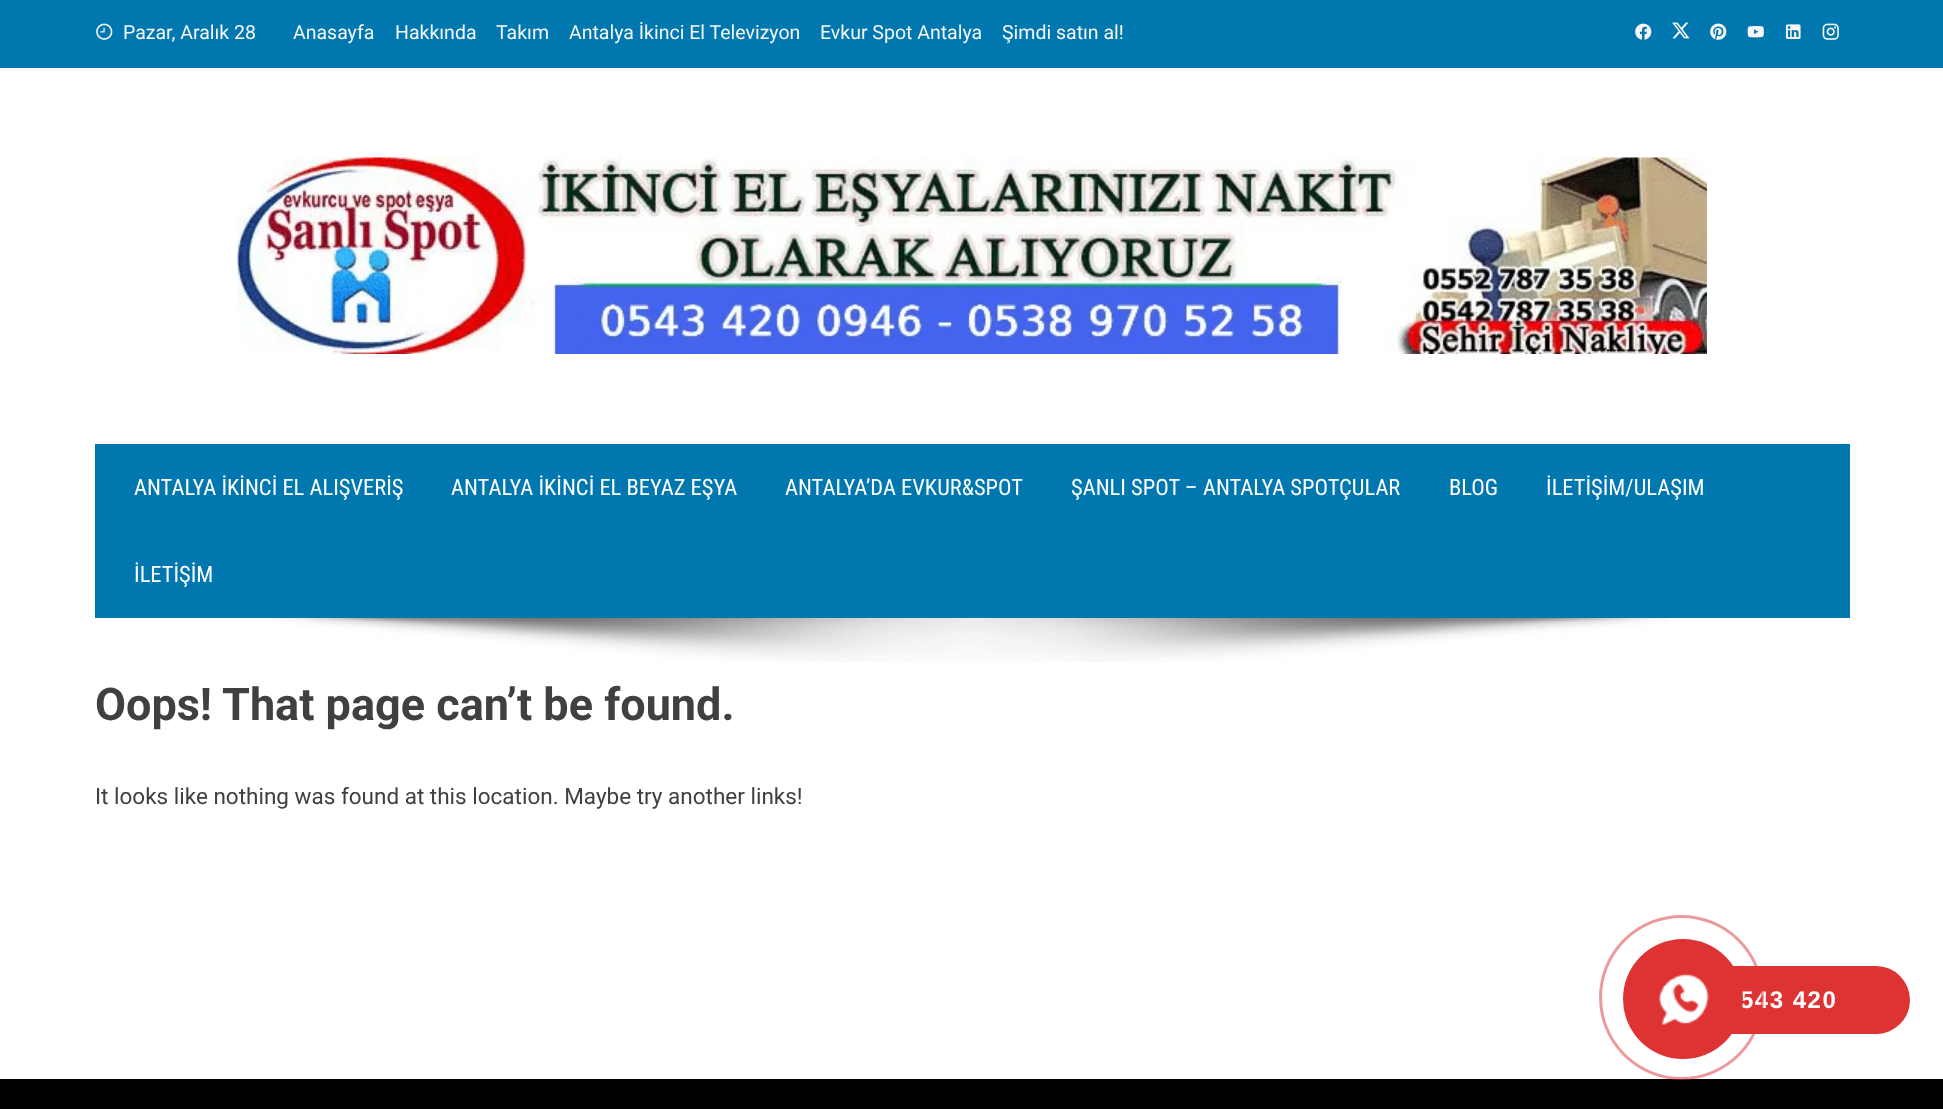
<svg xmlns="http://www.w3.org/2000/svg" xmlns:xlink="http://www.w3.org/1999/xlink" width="1943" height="1109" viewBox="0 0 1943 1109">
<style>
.cls-1{font:19.5px Roboto;fill:#f6f6f6}
.cls-2{font:22.5px Roboto Condensed;fill:#ffffff}
.cls-3{font:bold 45px Roboto;fill:#404040}
.cls-4{font:22.5px Roboto;fill:#404040}
.cls-5{font:bold 24px Liberation Sans;letter-spacing:1.5px;fill:#ffffff}
</style>
<rect width="100%" height="100%" fill="#ffffff"/>
<rect fill="#0078af" x="0" y="0" width="1943" height="68"/>
<image xlink:href="image0.png" x="96" y="23" width="17" height="17"/>
<image xlink:href="image1.png" x="1635" y="23" width="17" height="17"/>
<image xlink:href="image2.png" x="1672" y="22" width="18" height="17"/>
<image xlink:href="image3.png" x="1710" y="23" width="17" height="17"/>
<image xlink:href="image4.png" x="1747" y="26" width="17" height="12"/>
<image xlink:href="image5.png" x="1785" y="24" width="16" height="15"/>
<image xlink:href="image6.png" x="1822" y="23" width="17" height="17"/>
<image xlink:href="image7.png" x="237" y="157" width="1470" height="197"/>
<rect fill="#0078af" x="95" y="444" width="1755" height="174"/>
<image xlink:href="image8.png" x="272" y="618" width="1398" height="44"/>
<rect fill="#000000" x="0" y="1079" width="1943" height="30"/>
<rect fill="#dd3333" x="1662" y="966" width="248" height="68" rx="34"/>
<text class="cls-1" x="123" y="39">Pazar, Aralık 28</text>
<text class="cls-1" x="293" y="39">Anasayfa</text>
<text class="cls-1" x="395" y="39">Hakkında</text>
<text class="cls-1" x="496" y="39">Takım</text>
<text class="cls-1" x="569" y="39">Antalya İkinci El Televizyon</text>
<text class="cls-1" x="820" y="39">Evkur Spot Antalya</text>
<text class="cls-1" x="1002" y="39">Şimdi satın al!</text>
<text class="cls-2" x="134" y="495">ANTALYA İKİNCİ EL ALIŞVERİŞ</text>
<text class="cls-2" x="451" y="495">ANTALYA İKİNCİ EL BEYAZ EŞYA</text>
<text class="cls-2" x="785" y="495">ANTALYA’DA EVKUR&amp;SPOT</text>
<text class="cls-2" x="1071" y="495">ŞANLI SPOT – ANTALYA SPOTÇULAR</text>
<text class="cls-2" x="1449" y="495">BLOG</text>
<text class="cls-2" x="1546" y="495">İLETİŞİM/ULAŞIM</text>
<text class="cls-2" x="134" y="582">İLETİŞİM</text>
<text class="cls-3" x="95" y="720">Oops! That page can’t be found.</text>
<text class="cls-4" x="95" y="804">It looks like nothing was found at this location. Maybe try another links!</text>
<text class="cls-5" x="1740" y="1008">543 420</text>
<circle fill="none" stroke="#dd3333" stroke-opacity="0.5" stroke-width="3" cx="1681.5" cy="997.5" r="81"/>
<circle fill="#dd3333" cx="1683" cy="999" r="60"/>
<image xlink:href="image9.png" x="1658" y="974" width="51" height="51"/>
</svg>
